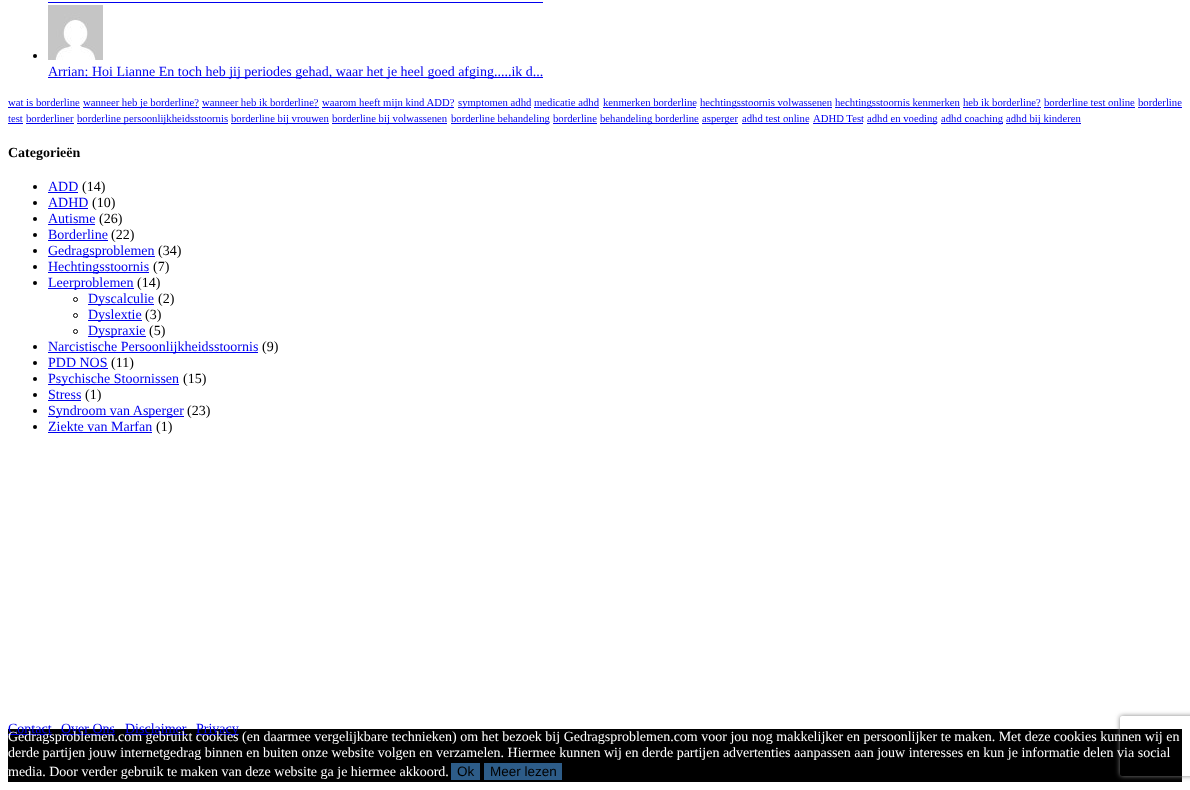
<svg xmlns="http://www.w3.org/2000/svg" xmlns:xlink="http://www.w3.org/1999/xlink" width="1190" height="790" viewBox="0 0 1190 790">
<style>
.cls-1{font:14px Liberation Serif;fill:#0000ee}
.cls-2{font:10.7px Liberation Serif;fill:#0000ee}
.cls-3{font:bold 14px Liberation Serif;fill:#000000}
.cls-4{font:14px Liberation Serif;fill:#000000}
.cls-5{font:14px Liberation Serif;fill:#ffffff}
.cls-6{font:13.5px Liberation Sans;fill:#000000}
</style>
<defs>
<clipPath id="clip1"><path d="M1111 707H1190V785H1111ZM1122 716H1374C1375 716 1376 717 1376 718V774C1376 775 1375 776 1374 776H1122C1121 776 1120 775 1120 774V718C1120 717 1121 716 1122 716Z" clip-rule="evenodd"/></clipPath>
</defs>
<rect width="100%" height="100%" fill="#ffffff"/>
<rect fill="#0000ee" x="48" y="2" width="495" height="1"/>
<circle fill="#000000" cx="35" cy="56" r="2"/>
<image xlink:href="image0.png" x="48" y="5" width="55" height="55"/>
<rect fill="#0000ee" x="48" y="77" width="495" height="1"/>
<rect fill="#0000ee" x="8" y="107" width="72" height="1"/>
<rect fill="#0000ee" x="83" y="107" width="116" height="1"/>
<rect fill="#0000ee" x="202" y="107" width="117" height="1"/>
<rect fill="#0000ee" x="322" y="107" width="132" height="1"/>
<rect fill="#0000ee" x="458" y="107" width="73" height="1"/>
<rect fill="#0000ee" x="534" y="107" width="65" height="1"/>
<rect fill="#0000ee" x="603" y="107" width="93" height="1"/>
<rect fill="#0000ee" x="700" y="107" width="132" height="1"/>
<rect fill="#0000ee" x="835" y="107" width="125" height="1"/>
<rect fill="#0000ee" x="963" y="107" width="78" height="1"/>
<rect fill="#0000ee" x="1044" y="107" width="91" height="1"/>
<rect fill="#0000ee" x="1138" y="107" width="44" height="1"/>
<rect fill="#0000ee" x="8" y="123" width="15" height="1"/>
<rect fill="#0000ee" x="26" y="123" width="48" height="1"/>
<rect fill="#0000ee" x="77" y="123" width="151" height="1"/>
<rect fill="#0000ee" x="231" y="123" width="98" height="1"/>
<rect fill="#0000ee" x="332" y="123" width="115" height="1"/>
<rect fill="#0000ee" x="451" y="123" width="98" height="1"/>
<rect fill="#0000ee" x="553" y="123" width="44" height="1"/>
<rect fill="#0000ee" x="600" y="123" width="99" height="1"/>
<rect fill="#0000ee" x="702" y="123" width="36" height="1"/>
<rect fill="#0000ee" x="742" y="123" width="67" height="1"/>
<rect fill="#0000ee" x="813" y="123" width="50" height="1"/>
<rect fill="#0000ee" x="867" y="123" width="70" height="1"/>
<rect fill="#0000ee" x="941" y="123" width="62" height="1"/>
<rect fill="#0000ee" x="1006" y="123" width="75" height="1"/>
<circle fill="#000000" cx="35" cy="187" r="2"/>
<rect fill="#0000ee" x="48" y="192" width="30" height="1"/>
<circle fill="#000000" cx="35" cy="203" r="2"/>
<rect fill="#0000ee" x="48" y="208" width="40" height="1"/>
<circle fill="#000000" cx="35" cy="219" r="2"/>
<rect fill="#0000ee" x="48" y="224" width="47" height="1"/>
<circle fill="#000000" cx="35" cy="235" r="2"/>
<rect fill="#0000ee" x="48" y="240" width="60" height="1"/>
<circle fill="#000000" cx="35" cy="251" r="2"/>
<rect fill="#0000ee" x="48" y="256" width="107" height="1"/>
<circle fill="#000000" cx="35" cy="267" r="2"/>
<rect fill="#0000ee" x="48" y="272" width="101" height="1"/>
<circle fill="#000000" cx="35" cy="283" r="2"/>
<rect fill="#0000ee" x="48" y="288" width="86" height="1"/>
<circle fill="none" stroke="#000000" cx="75.5" cy="299.5" r="2"/>
<rect fill="#0000ee" x="88" y="304" width="66" height="1"/>
<circle fill="none" stroke="#000000" cx="75.5" cy="315.5" r="2"/>
<rect fill="#0000ee" x="88" y="320" width="54" height="1"/>
<circle fill="none" stroke="#000000" cx="75.5" cy="331.5" r="2"/>
<rect fill="#0000ee" x="88" y="336" width="58" height="1"/>
<circle fill="#000000" cx="35" cy="347" r="2"/>
<rect fill="#0000ee" x="48" y="352" width="210" height="1"/>
<circle fill="#000000" cx="35" cy="363" r="2"/>
<rect fill="#0000ee" x="48" y="368" width="60" height="1"/>
<circle fill="#000000" cx="35" cy="379" r="2"/>
<rect fill="#0000ee" x="48" y="384" width="131" height="1"/>
<circle fill="#000000" cx="35" cy="395" r="2"/>
<rect fill="#0000ee" x="48" y="400" width="33" height="1"/>
<circle fill="#000000" cx="35" cy="411" r="2"/>
<rect fill="#0000ee" x="48" y="416" width="136" height="1"/>
<circle fill="#000000" cx="35" cy="427" r="2"/>
<rect fill="#0000ee" x="48" y="432" width="104" height="1"/>
<rect fill="#000000" x="8" y="729" width="1174" height="53"/>
<rect fill="#0000ee" x="8" y="734" width="44" height="1"/>
<rect fill="#0000ee" x="61" y="734" width="54" height="1"/>
<rect fill="#0000ee" x="125" y="734" width="62" height="1"/>
<rect fill="#0000ee" x="196" y="734" width="43" height="1"/>
<g clip-path="url(#clip1)">
<rect fill="#808080" filter="blur(2.5px)" x="1120" y="716" width="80" height="60" rx="2"/>
</g>
<rect fill="#2d5c88" x="451" y="763" width="29" height="17"/>
<rect fill="#2d5c88" x="484" y="763" width="78" height="17"/>
<text class="cls-1" x="48" y="76">Arrian: Hoi Lianne En toch heb jij periodes gehad, waar het je heel goed afging.....ik d...</text>
<text class="cls-2" x="8" y="106">wat is borderline</text>
<text class="cls-2" x="83" y="106">wanneer heb je borderline?</text>
<text class="cls-2" x="202" y="106">wanneer heb ik borderline?</text>
<text class="cls-2" x="322" y="106">waarom heeft mijn kind ADD?</text>
<text class="cls-2" x="458" y="106">symptomen adhd</text>
<text class="cls-2" x="534" y="106">medicatie adhd</text>
<text class="cls-2" x="603" y="106">kenmerken borderline</text>
<text class="cls-2" x="700" y="106">hechtingsstoornis volwassenen</text>
<text class="cls-2" x="835" y="106">hechtingsstoornis kenmerken</text>
<text class="cls-2" x="963" y="106">heb ik borderline?</text>
<text class="cls-2" x="1044" y="106">borderline test online</text>
<text class="cls-2" x="1138" y="106">borderline</text>
<text class="cls-2" x="8" y="122">test</text>
<text class="cls-2" x="26" y="122">borderliner</text>
<text class="cls-2" x="77" y="122">borderline persoonlijkheidsstoornis</text>
<text class="cls-2" x="231" y="122">borderline bij vrouwen</text>
<text class="cls-2" x="332" y="122">borderline bij volwassenen</text>
<text class="cls-2" x="451" y="122">borderline behandeling</text>
<text class="cls-2" x="553" y="122">borderline</text>
<text class="cls-2" x="600" y="122">behandeling borderline</text>
<text class="cls-2" x="702" y="122">asperger</text>
<text class="cls-2" x="742" y="122">adhd test online</text>
<text class="cls-2" x="813" y="122">ADHD Test</text>
<text class="cls-2" x="867" y="122">adhd en voeding</text>
<text class="cls-2" x="941" y="122">adhd coaching</text>
<text class="cls-2" x="1006" y="122">adhd bij kinderen</text>
<text class="cls-3" x="8" y="157">Categorieën</text>
<text class="cls-1" x="48" y="191">ADD</text>
<text class="cls-4" x="82" y="191">(14)</text>
<text class="cls-1" x="48" y="207">ADHD</text>
<text class="cls-4" x="92" y="207">(10)</text>
<text class="cls-1" x="48" y="223">Autisme</text>
<text class="cls-4" x="99" y="223">(26)</text>
<text class="cls-1" x="48" y="239">Borderline</text>
<text class="cls-4" x="111" y="239">(22)</text>
<text class="cls-1" x="48" y="255">Gedragsproblemen</text>
<text class="cls-4" x="158" y="255">(34)</text>
<text class="cls-1" x="48" y="271">Hechtingsstoornis</text>
<text class="cls-4" x="153" y="271">(7)</text>
<text class="cls-1" x="48" y="287">Leerproblemen</text>
<text class="cls-4" x="137" y="287">(14)</text>
<text class="cls-1" x="88" y="303">Dyscalculie</text>
<text class="cls-4" x="158" y="303">(2)</text>
<text class="cls-1" x="88" y="319">Dyslextie</text>
<text class="cls-4" x="145" y="319">(3)</text>
<text class="cls-1" x="88" y="335">Dyspraxie</text>
<text class="cls-4" x="149" y="335">(5)</text>
<text class="cls-1" x="48" y="351">Narcistische Persoonlijkheidsstoornis</text>
<text class="cls-4" x="262" y="351">(9)</text>
<text class="cls-1" x="48" y="367">PDD NOS</text>
<text class="cls-4" x="111" y="367">(11)</text>
<text class="cls-1" x="48" y="383">Psychische Stoornissen</text>
<text class="cls-4" x="183" y="383">(15)</text>
<text class="cls-1" x="48" y="399">Stress</text>
<text class="cls-4" x="85" y="399">(1)</text>
<text class="cls-1" x="48" y="415">Syndroom van Asperger</text>
<text class="cls-4" x="187" y="415">(23)</text>
<text class="cls-1" x="48" y="431">Ziekte van Marfan</text>
<text class="cls-4" x="156" y="431">(1)</text>
<text class="cls-1" x="8" y="733">Contact</text>
<text class="cls-1" x="61" y="733">Over Ons</text>
<text class="cls-1" x="125" y="733">Disclaimer</text>
<text class="cls-1" x="196" y="733">Privacy</text>
<text class="cls-5"><tspan x="8" y="741">Gedragsproblemen.com gebruikt cookies (en daarmee vergelijkbare technieken) om het bezoek bij Gedragsproblemen.com voor jou nog makkelijker en persoonlijker te maken. Met deze cookies kunnen wij en</tspan><tspan x="8" y="757">derde partijen jouw internetgedrag binnen en buiten onze website volgen en verzamelen. Hiermee kunnen wij en derde partijen advertenties aanpassen aan jouw interesses en kun je informatie delen via social</tspan><tspan x="8" y="776">media. Door verder gebruik te maken van deze website ga je hiermee akkoord.</tspan></text>
<text class="cls-6" x="457" y="776">Ok</text>
<text class="cls-6" x="490" y="776">Meer lezen</text>
</svg>
